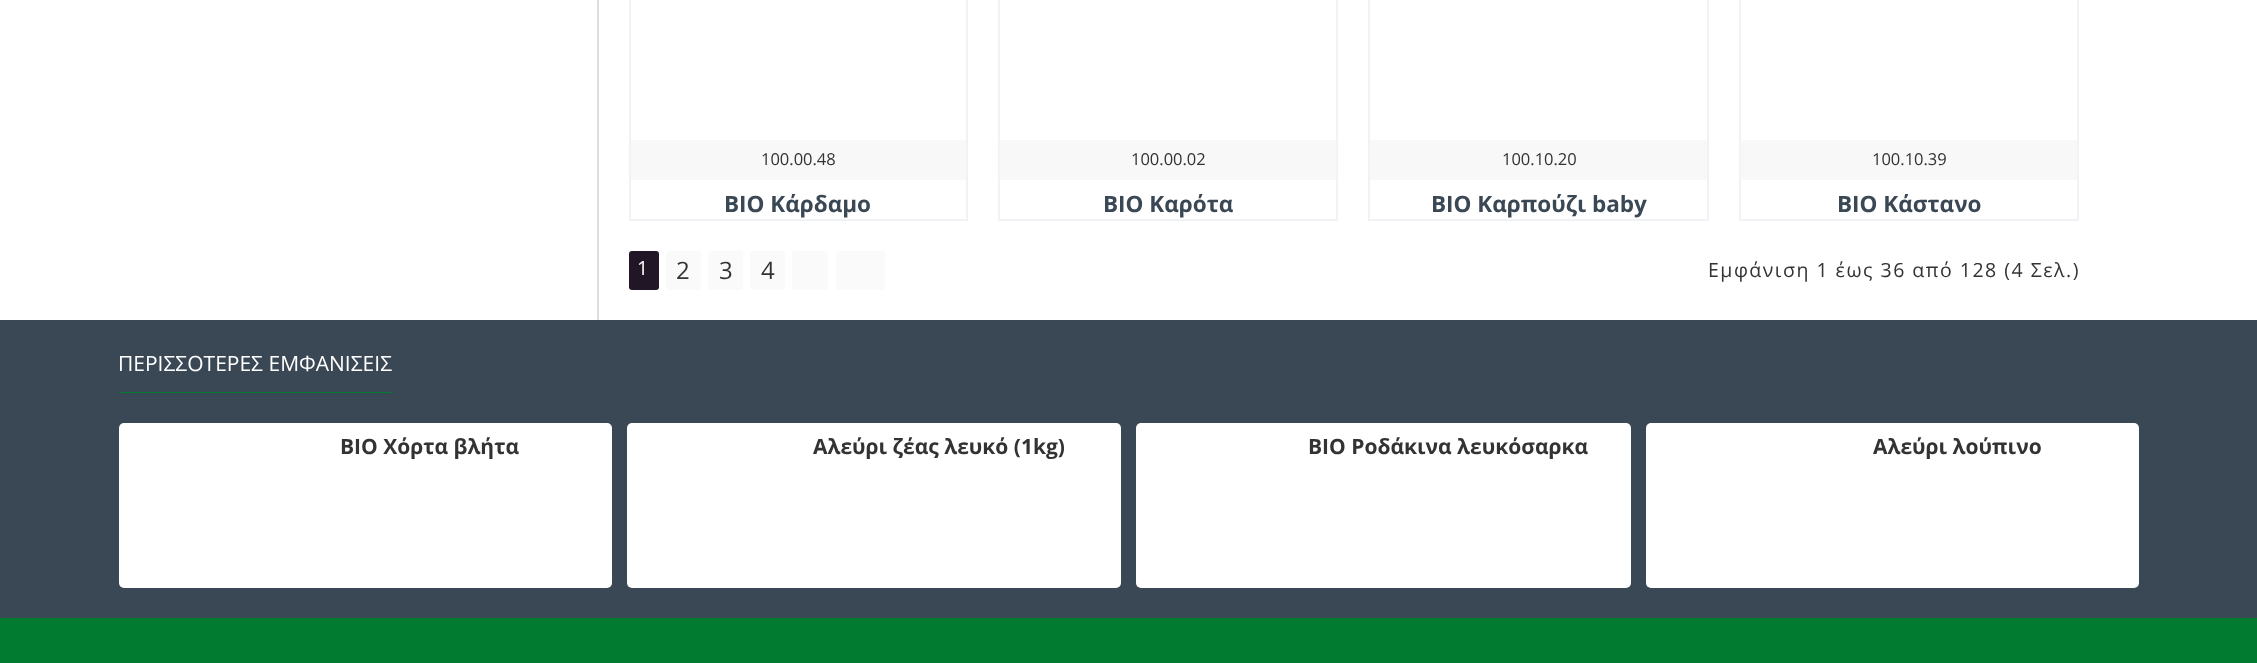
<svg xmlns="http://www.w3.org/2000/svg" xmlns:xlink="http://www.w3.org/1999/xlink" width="2257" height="663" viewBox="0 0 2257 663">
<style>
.cls-1{font:16.5px Open Sans;fill:#333333}
.cls-2{font:bold 22.5px Open Sans;fill:#3a4754}
.cls-3{font:19.5px Open Sans;letter-spacing:1.5px;fill:#ffffff}
.cls-4{font:24px Open Sans;letter-spacing:1.5px;fill:#333333}
.cls-5{font:19.5px Open Sans;letter-spacing:1.5px;fill:#333333}
.cls-6{font:21px Open Sans;fill:#ffffff}
.cls-7{font:bold 21px Open Sans;fill:#333333}
</style>
<rect width="100%" height="100%" fill="#ffffff"/>
<rect fill="#dddddd" x="597" y="0" width="2" height="320"/>
<rect fill="none" stroke="#f0f2f5" stroke-width="2" x="630" y="-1" width="337" height="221"/>
<rect fill="#f7f5f5" fill-opacity="0.7" x="630" y="140" width="336" height="40"/>
<rect fill="none" stroke="#f0f2f5" stroke-width="2" x="999" y="-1" width="338" height="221"/>
<rect fill="#f7f5f5" fill-opacity="0.7" x="999" y="140" width="338" height="40"/>
<rect fill="none" stroke="#f0f2f5" stroke-width="2" x="1369" y="-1" width="339" height="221"/>
<rect fill="#f9f8f8" x="1370" y="140" width="337" height="40"/>
<rect fill="none" stroke="#f0f2f5" stroke-width="2" x="1740" y="-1" width="338" height="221"/>
<rect fill="#f7f5f5" fill-opacity="0.7" x="1740" y="140" width="338" height="40"/>
<rect fill="#211626" x="629" y="251" width="30" height="39" rx="3"/>
<rect fill="#fafafa" x="666" y="251" width="35" height="39" rx="3"/>
<rect fill="#fafafa" x="708" y="251" width="35" height="39" rx="3"/>
<rect fill="#fafafa" x="750" y="251" width="35" height="39" rx="3"/>
<rect fill="#fafafa" x="792" y="251" width="36" height="39" rx="3"/>
<rect fill="#fafafa" x="836" y="251" width="49" height="39" rx="3"/>
<rect fill="#007b2f" x="0" y="618" width="2257" height="45"/>
<rect fill="#3a4754" x="0" y="320" width="2257" height="298"/>
<rect fill="#007b2f" x="119" y="392" width="273" height="1"/>
<rect fill="#ffffff" x="119" y="423" width="493" height="165" rx="5"/>
<rect fill="#ffffff" x="627" y="423" width="494" height="165" rx="5"/>
<rect fill="#ffffff" x="1136" y="423" width="495" height="165" rx="5"/>
<rect fill="#ffffff" x="1646" y="423" width="493" height="165" rx="5"/>
<text class="cls-1" x="761" y="165">100.00.48</text>
<text class="cls-2" x="724" y="212">ΒΙΟ Κάρδαμο</text>
<text class="cls-1" x="1131" y="165">100.00.02</text>
<text class="cls-2" x="1103" y="212">ΒΙΟ Καρότα</text>
<text class="cls-1" x="1502" y="165">100.10.20</text>
<text class="cls-2" x="1431" y="212">ΒΙΟ Καρπούζι baby</text>
<text class="cls-1" x="1872" y="165">100.10.39</text>
<text class="cls-2" x="1837" y="212">ΒΙΟ Κάστανο</text>
<text class="cls-3" x="637" y="275">1</text>
<text class="cls-4" x="676" y="279">2</text>
<text class="cls-4" x="719" y="279">3</text>
<text class="cls-4" x="761" y="279">4</text>
<text class="cls-5" x="1708" y="277">Εμφάνιση 1 έως 36 από 128 (4 Σελ.)</text>
<text class="cls-6" x="118" y="371">ΠΕΡΙΣΣΟΤΕΡΕΣ ΕΜΦΑΝΙΣΕΙΣ</text>
<text class="cls-7" x="340" y="454">ΒΙΟ Χόρτα βλήτα</text>
<text class="cls-7" x="813" y="454">Αλεύρι ζέας λευκό (1kg)</text>
<text class="cls-7" x="1308" y="454">ΒΙΟ Ροδάκινα λευκόσαρκα</text>
<text class="cls-7" x="1873" y="454">Αλεύρι λούπινο</text>
</svg>
